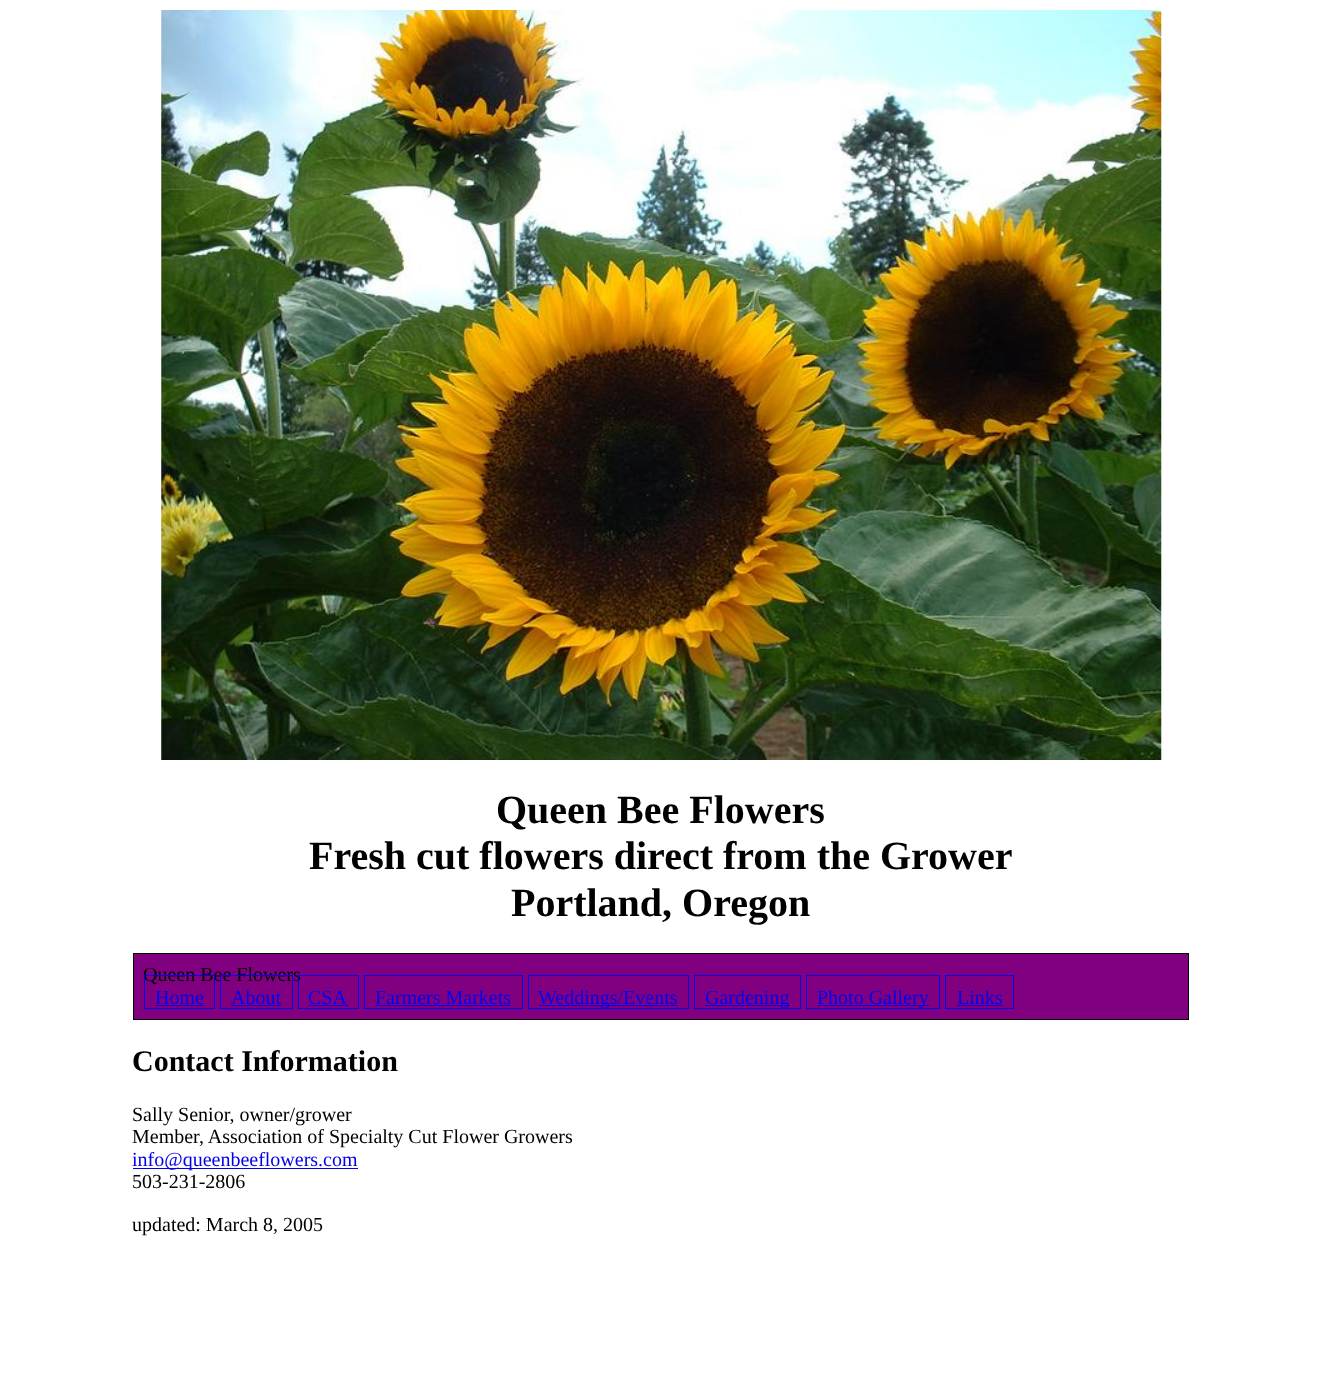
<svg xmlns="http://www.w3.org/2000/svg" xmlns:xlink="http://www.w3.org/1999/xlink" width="1321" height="1384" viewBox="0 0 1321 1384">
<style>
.cls-1{font:bold 40px Liberation Serif;fill:#000000}
.cls-2{font:20px Liberation Serif;fill:#000000}
.cls-3{font:20px Liberation Serif;fill:#0000ee}
.cls-4{font:bold 30px Liberation Serif;fill:#000000}
</style>
<rect width="100%" height="100%" fill="#ffffff"/>
<image xlink:href="image0.png" x="161" y="10" width="1001" height="750"/>
<rect fill="#800080" stroke="#000000" x="133.5" y="953.5" width="1055" height="66"/>
<rect fill="none" stroke="#0000ee" x="364.5" y="975.5" width="158" height="33"/>
<rect fill="#0000ee" x="375" y="1005" width="136" height="1"/>
<rect fill="none" stroke="#0000ee" x="528.5" y="975.5" width="160" height="33"/>
<rect fill="#0000ee" x="539" y="1005" width="139" height="1"/>
<rect fill="none" stroke="#0000ee" x="694.5" y="975.5" width="106" height="33"/>
<rect fill="#0000ee" x="705" y="1005" width="85" height="1"/>
<rect fill="none" stroke="#0000ee" x="806.5" y="975.5" width="133" height="33"/>
<rect fill="#0000ee" x="818" y="1005" width="111" height="1"/>
<rect fill="none" stroke="#0000ee" x="945.5" y="975.5" width="68" height="33"/>
<rect fill="#0000ee" x="956" y="1005" width="47" height="1"/>
<rect fill="#0000ee" x="133" y="1168" width="225" height="1"/>
<text class="cls-1" x="496" y="823">Queen Bee Flowers</text>
<text class="cls-1" x="309" y="869">Fresh cut flowers direct from the Grower</text>
<text class="cls-1" x="511" y="916">Portland, Oregon</text>
<text class="cls-2" x="143" y="981">Queen Bee Flowers</text>
<rect fill="none" stroke="#0000ee" x="144.5" y="975.5" width="70" height="33"/>
<text class="cls-3" x="155" y="1004">Home</text>
<rect fill="#0000ee" x="155" y="1005" width="49" height="1"/>
<rect fill="none" stroke="#0000ee" x="220.5" y="975.5" width="72" height="33"/>
<text class="cls-3" x="231" y="1004">About</text>
<rect fill="#0000ee" x="231" y="1005" width="50" height="1"/>
<rect fill="none" stroke="#0000ee" x="298.5" y="975.5" width="60" height="33"/>
<text class="cls-3" x="308" y="1004">CSA</text>
<rect fill="#0000ee" x="309" y="1005" width="39" height="1"/>
<text class="cls-3" x="375" y="1004">Farmers Markets</text>
<text class="cls-3" x="538" y="1004">Weddings/Events</text>
<text class="cls-3" x="705" y="1004">Gardening</text>
<text class="cls-3" x="817" y="1004">Photo Gallery</text>
<text class="cls-3" x="957" y="1004">Links</text>
<text class="cls-4" x="132" y="1071">Contact Information</text>
<text class="cls-2"><tspan x="132" y="1121">Sally Senior, owner/grower</tspan><tspan x="132" y="1143">Member, Association of Specialty Cut Flower Growers</tspan></text>
<text class="cls-3" x="132" y="1166">info@queenbeeflowers.com</text>
<text class="cls-2" x="132" y="1188">503-231-2806</text>
<text class="cls-2" x="132" y="1231">updated: March 8, 2005</text>
</svg>
